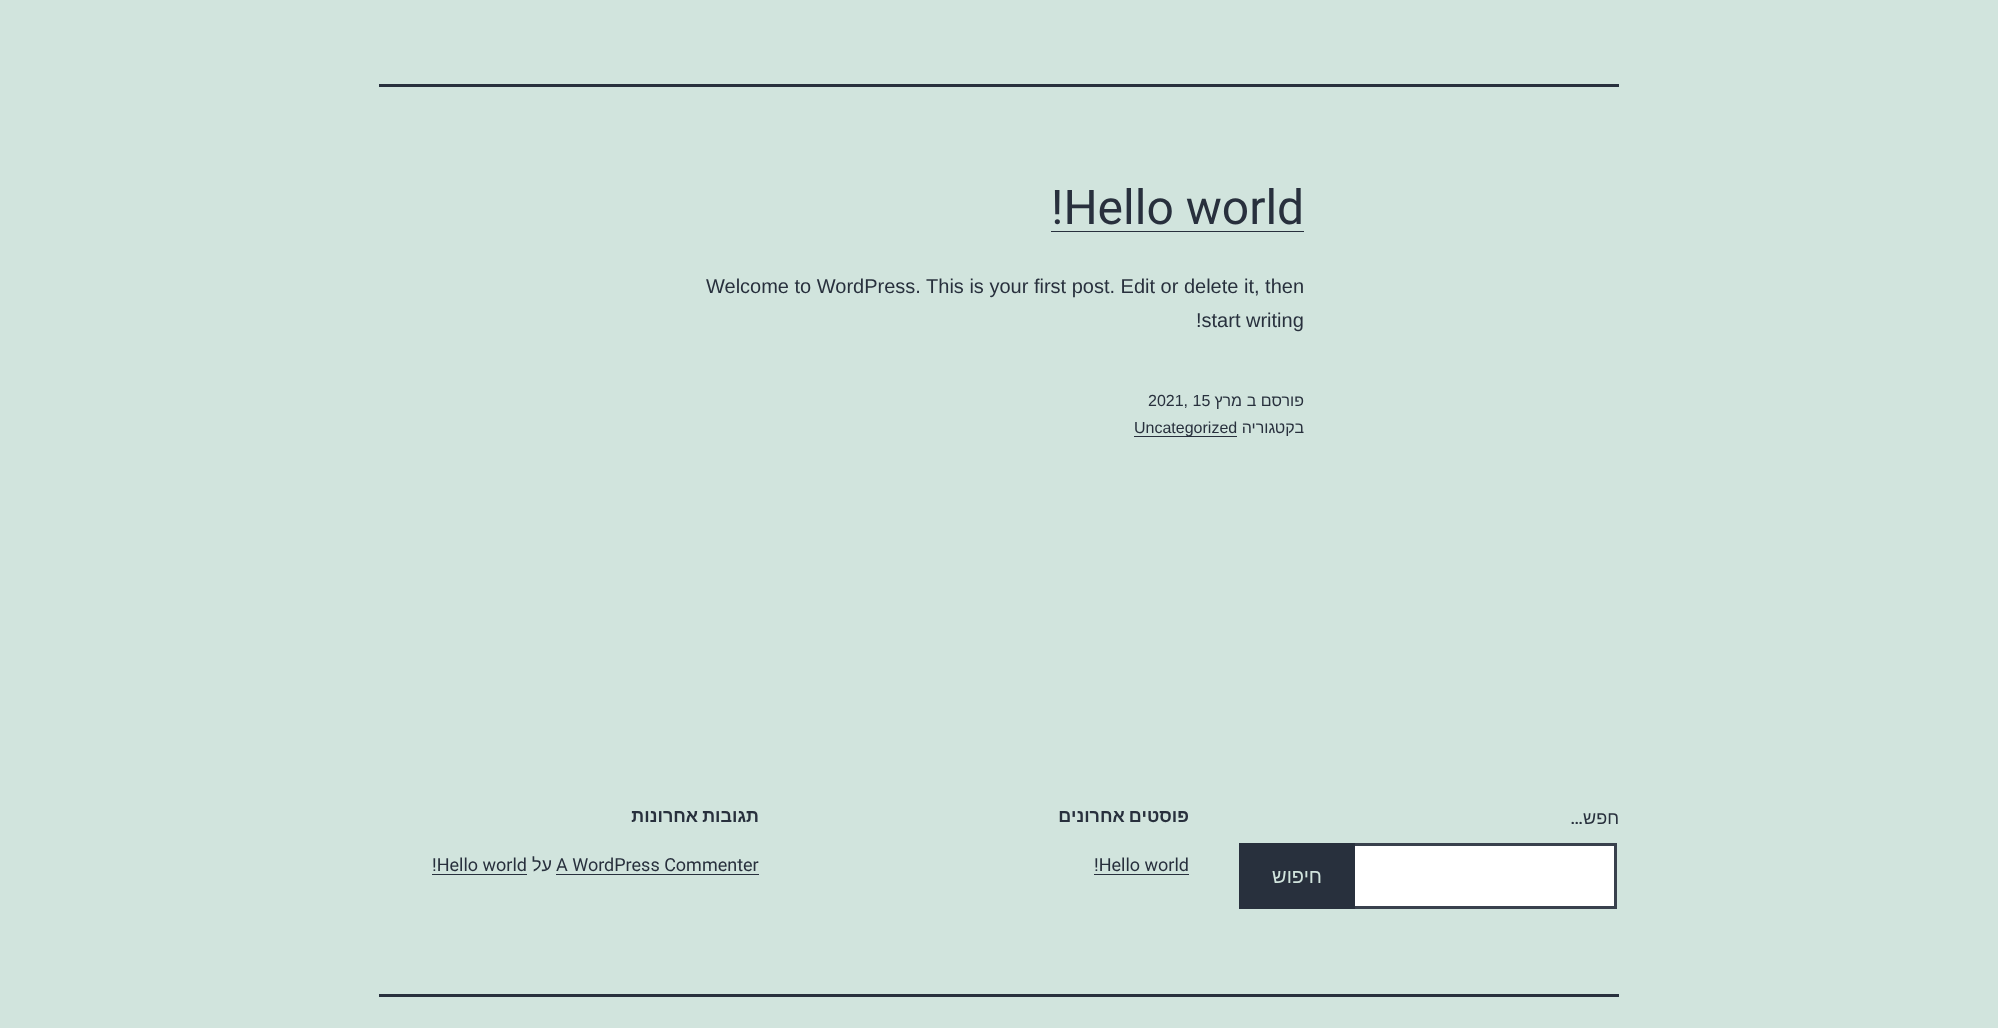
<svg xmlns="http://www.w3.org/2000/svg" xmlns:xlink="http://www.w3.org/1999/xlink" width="1998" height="1028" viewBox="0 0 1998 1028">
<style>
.cls-1{font:48px Roboto;fill:#28303d}
.cls-2{font:20px Liberation Sans;fill:#28303d}
.cls-3{font:16px Liberation Sans;fill:#28303d}
.cls-4{font:16px Liberation Sans;direction:rtl;fill:#28303d}
.cls-5{font:bold 18px Liberation Sans;direction:rtl;fill:#28303d}
.cls-6{font:18px Roboto;fill:#28303d}
.cls-7{font:18px Liberation Sans;direction:rtl;fill:#28303d}
.cls-8{font:500 18px Roboto;direction:rtl;fill:#28303d}
.cls-9{font:20px Liberation Sans;direction:rtl;fill:#d1e4dd}
</style>
<rect width="100%" height="100%" fill="#d1e4dd"/>
<rect fill="#28303d" x="379" y="84" width="1240" height="3"/>
<rect fill="#28303d" x="1051" y="231" width="253" height="1"/>
<rect fill="#28303d" x="1134" y="436" width="103" height="1"/>
<rect fill="#28303d" x="432" y="874" width="95" height="1"/>
<rect fill="#28303d" x="556" y="874" width="203" height="1"/>
<rect fill="#28303d" x="1094" y="874" width="95" height="1"/>
<rect fill="#ffffff" stroke="#39414d" stroke-width="3" x="1353.5" y="844.5" width="262" height="63"/>
<rect fill="#28303d" x="1239" y="843" width="116" height="66"/>
<rect fill="#28303d" x="379" y="994" width="1240" height="3"/>
<text class="cls-1" x="1051" y="224">!Hello world</text>
<text class="cls-2" x="706" y="293">Welcome to WordPress. This is your first post. Edit or delete it, then</text>
<text class="cls-2" x="1196" y="327">!start writing</text>
<text class="cls-3" x="1148" y="406">2021, 15</text>
<text class="cls-4" x="1242" y="406">מרץ</text>
<text class="cls-4" x="1304" y="406">פורסם ב</text>
<text class="cls-3" x="1134" y="433">Uncategorized</text>
<text class="cls-4" x="1304" y="433">בקטגוריה</text>
<text class="cls-5" x="759" y="822" word-spacing="-1">תגובות אחרונות</text>
<text class="cls-6" x="432" y="871">!Hello world</text>
<text class="cls-7" x="552" y="871">על</text>
<text class="cls-6" x="556" y="871">A WordPress Commenter</text>
<text class="cls-5" x="1189" y="822" word-spacing="-1">פוסטים אחרונים</text>
<text class="cls-6" x="1094" y="871">!Hello world</text>
<text class="cls-8" x="1583" y="824">…</text>
<text class="cls-7" x="1619" y="824">חפש</text>
<text class="cls-9" x="1322" y="883">חיפוש</text>
</svg>
